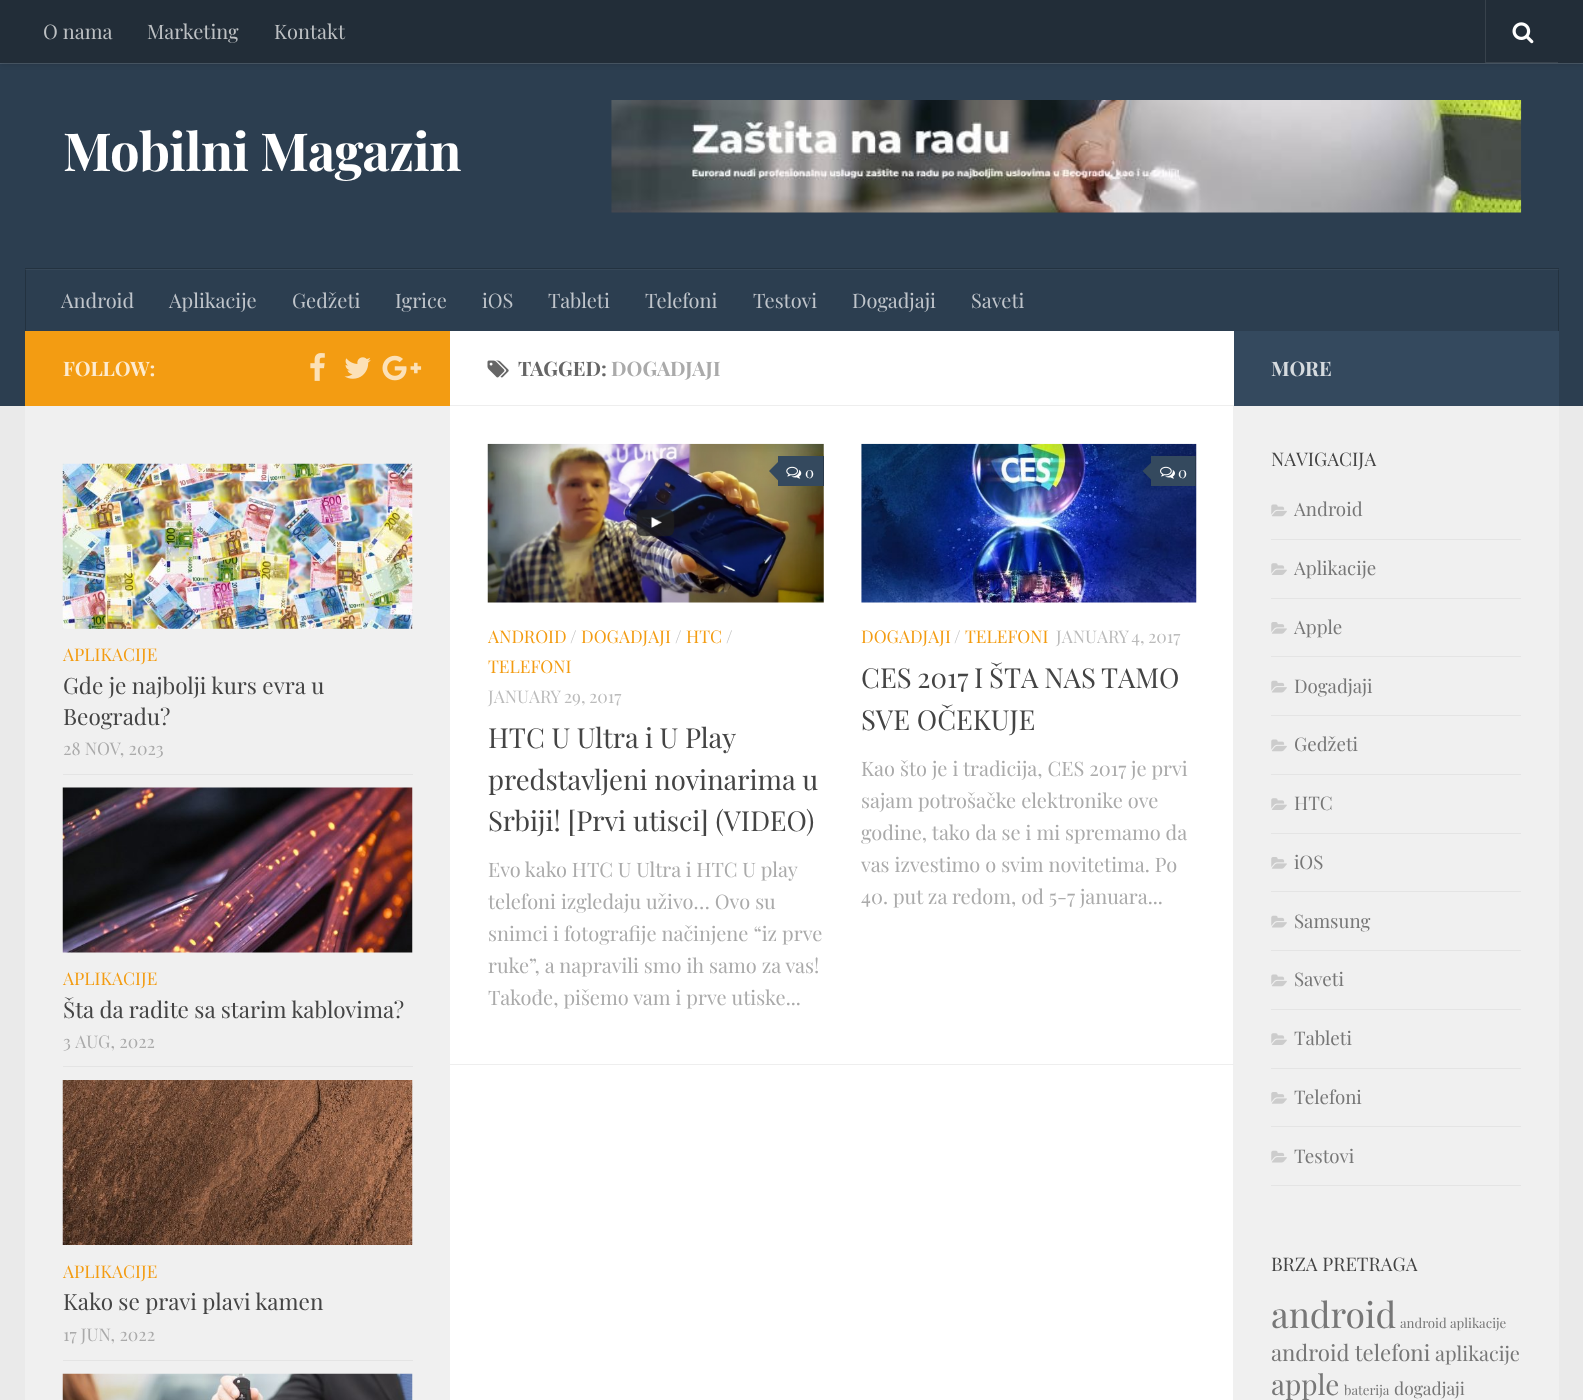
<svg xmlns="http://www.w3.org/2000/svg" xmlns:xlink="http://www.w3.org/1999/xlink" width="1583" height="1400" viewBox="0 0 1583 1400">
<style>
.cls-1{font:20px Playfair Display;fill:#bdc0c3}
.cls-2{font:bold 52.5px Playfair Display;letter-spacing:-0.6px;fill:#ffffff}
.cls-3{font:20px Playfair Display;fill:#c0c5cb}
.cls-4{font:bold 20px Playfair Display;fill:#fdebd0}
.cls-5{font:17.5px Playfair Display;fill:#f39c12}
.cls-6{font:22.5px Playfair Display;fill:#444444}
.cls-7{font:17.5px Playfair Display;fill:#aaaaaa}
.cls-8{font:bold 20px Playfair Display;fill:#666666}
.cls-9{font:bold 20px Playfair Display;fill:#aaaaaa}
.cls-10{font:15px Playfair Display;fill:#ffffff}
.cls-11{font:17.5px Playfair Display;fill:#bbbbbb}
.cls-12{font:27.5px Playfair Display;fill:#444444}
.cls-13{font:20px Playfair Display;fill:#aaaaaa}
.cls-14{font:bold 20px Playfair Display;fill:#d6dbdf}
.cls-15{font:18.75px Playfair Display;fill:#444444}
.cls-16{font:18.75px Playfair Display;fill:#777777}
.cls-17{font:35.5px Playfair Display;fill:#777777}
.cls-18{font:13.25px Playfair Display;fill:#777777}
.cls-19{font:22.25px Playfair Display;fill:#777777}
.cls-20{font:20px Playfair Display;fill:#777777}
.cls-21{font:28px Playfair Display;fill:#777777}
.cls-22{font:17.5px Playfair Display;fill:#777777}
</style>
<rect width="100%" height="100%" fill="#eaeaea"/>
<rect fill="#2c3e50" x="0" y="64" width="1583" height="342"/>
<rect fill="#374859" x="25" y="269" width="1534" height="1"/>
<path fill="#4c5b6a" d="M0 62V64H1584V1V62Z"/>
<rect fill="#000000" fill-opacity="0.2" filter="blur(3px)" x="0" y="0" width="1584" height="63"/>
<rect fill="#222d38" x="0" y="0" width="1583" height="63"/>
<path fill="#38424c" d="M1485 0V63H1558V62H1486V0Z"/>
<image xlink:href="image0.png" x="1512" y="22" width="22" height="22"/>
<image xlink:href="image1.png" x="611" y="100" width="911" height="113"/>
<path fill="#233240" d="M25 268V269H1559V330V268Z"/>
<rect fill="#233240" x="1558" y="269" width="1" height="62"/>
<rect fill="#2e3c4a" x="1558" y="269" width="1" height="1"/>
<rect fill="#233240" x="25" y="269" width="1" height="62"/>
<rect fill="#2e3c4a" x="25" y="269" width="1" height="1"/>
<rect fill="#ffffff" x="450" y="406" width="783" height="994"/>
<rect fill="#f0f0f0" x="1233" y="406" width="326" height="994"/>
<rect fill="#f0f0f0" x="25" y="406" width="425" height="994"/>
<rect fill="#f39c12" x="25" y="331" width="425" height="75"/>
<image xlink:href="image2.png" x="310" y="353" width="15" height="28"/>
<image xlink:href="image3.png" x="344" y="357" width="27" height="22"/>
<image xlink:href="image4.png" x="382" y="355" width="40" height="26"/>
<rect fill="#e4e4e4" x="63" y="774" width="350" height="1"/>
<image xlink:href="image5.png" x="62" y="463" width="351" height="166"/>
<rect fill="#e4e4e4" x="63" y="1066" width="350" height="1"/>
<image xlink:href="image6.png" x="62" y="787" width="351" height="166"/>
<rect fill="#e4e4e4" x="63" y="1360" width="350" height="1"/>
<image xlink:href="image7.png" x="62" y="1080" width="351" height="165"/>
<image xlink:href="image8.png" x="62" y="1373" width="351" height="27"/>
<rect fill="#ffffff" x="450" y="331" width="784" height="74"/>
<rect fill="#eeeeee" x="450" y="405" width="784" height="1"/>
<image xlink:href="image9.png" x="487" y="360" width="22" height="18"/>
<rect fill="#eeeeee" x="450" y="1064" width="784" height="1"/>
<image xlink:href="image10.png" x="487" y="443" width="337" height="160"/>
<rect fill="#34495e" x="778" y="456" width="45" height="30"/>
<rect fill="#2a3a4b" x="823" y="456" width="1" height="30"/>
<path fill="#34495e" d="M780 460V482.5L769 471Z"/>
<image xlink:href="image11.png" x="786" y="466" width="16" height="13"/>
<image xlink:href="image12.png" x="861" y="443" width="336" height="160"/>
<rect fill="#34495e" x="1151" y="456" width="44" height="30"/>
<rect fill="#2a3a4b" x="1195" y="456" width="1" height="30"/>
<path fill="#34495e" d="M1154 460V482.5L1142.5 471Z"/>
<image xlink:href="image13.png" x="1160" y="466" width="15" height="13"/>
<rect fill="#34495e" x="1234" y="331" width="325" height="75"/>
<rect fill="#e4e4e4" x="1271" y="539" width="250" height="1"/>
<image xlink:href="image14.png" x="1271" y="504" width="16" height="13"/>
<rect fill="#e4e4e4" x="1271" y="598" width="250" height="1"/>
<image xlink:href="image15.png" x="1271" y="563" width="16" height="12"/>
<rect fill="#e4e4e4" x="1271" y="656" width="250" height="1"/>
<image xlink:href="image16.png" x="1271" y="622" width="16" height="12"/>
<rect fill="#e4e4e4" x="1271" y="715" width="250" height="1"/>
<image xlink:href="image17.png" x="1271" y="680" width="16" height="13"/>
<rect fill="#e4e4e4" x="1271" y="774" width="250" height="1"/>
<image xlink:href="image14.png" x="1271" y="739" width="16" height="13"/>
<rect fill="#e4e4e4" x="1271" y="833" width="250" height="1"/>
<image xlink:href="image15.png" x="1271" y="798" width="16" height="12"/>
<rect fill="#e4e4e4" x="1271" y="891" width="250" height="1"/>
<image xlink:href="image16.png" x="1271" y="857" width="16" height="12"/>
<rect fill="#e4e4e4" x="1271" y="950" width="250" height="1"/>
<image xlink:href="image17.png" x="1271" y="915" width="16" height="13"/>
<rect fill="#e4e4e4" x="1271" y="1009" width="250" height="1"/>
<image xlink:href="image14.png" x="1271" y="974" width="16" height="13"/>
<rect fill="#e4e4e4" x="1271" y="1068" width="250" height="1"/>
<image xlink:href="image15.png" x="1271" y="1033" width="16" height="12"/>
<rect fill="#e4e4e4" x="1271" y="1126" width="250" height="1"/>
<image xlink:href="image16.png" x="1271" y="1092" width="16" height="12"/>
<rect fill="#e4e4e4" x="1271" y="1185" width="250" height="1"/>
<image xlink:href="image17.png" x="1271" y="1150" width="16" height="13"/>
<text class="cls-1" x="43" y="39">O nama</text>
<text class="cls-1" x="147" y="39">Marketing</text>
<text class="cls-1" x="274" y="39">Kontakt</text>
<text class="cls-2" x="63" y="171">Mobilni Magazin</text>
<text class="cls-3" x="61" y="308">Android</text>
<text class="cls-3" x="169" y="308">Aplikacije</text>
<text class="cls-3" x="292" y="308">Gedžeti</text>
<text class="cls-3" x="395" y="308">Igrice</text>
<text class="cls-3" x="482" y="308">iOS</text>
<text class="cls-3" x="548" y="308">Tableti</text>
<text class="cls-3" x="645" y="308">Telefoni</text>
<text class="cls-3" x="753" y="308">Testovi</text>
<text class="cls-3" x="852" y="308">Dogadjaji</text>
<text class="cls-3" x="971" y="308">Saveti</text>
<text class="cls-4" x="63" y="376">FOLLOW:</text>
<text class="cls-5" x="63" y="661">APLIKACIJE</text>
<text class="cls-6"><tspan x="63" y="694">Gde je najbolji kurs evra u</tspan><tspan x="63" y="725">Beogradu?</tspan></text>
<text class="cls-7" x="63" y="755">28 NOV, 2023</text>
<text class="cls-5" x="63" y="985">APLIKACIJE</text>
<text class="cls-6" x="63" y="1018" word-spacing="-0.25">Šta da radite sa starim kablovima?</text>
<text class="cls-7" x="63" y="1048">3 AUG, 2022</text>
<text class="cls-5" x="63" y="1278">APLIKACIJE</text>
<text class="cls-6" x="63" y="1310" word-spacing="-0.25">Kako se pravi plavi kamen</text>
<text class="cls-7" x="63" y="1341">17 JUN, 2022</text>
<text class="cls-8" x="518" y="376">TAGGED:</text>
<text class="cls-9" x="611" y="376">DOGADJAJI</text>
<text class="cls-10" x="805" y="478">0</text>
<text class="cls-5" x="488" y="643">ANDROID</text>
<text class="cls-11" x="570" y="643">/</text>
<text class="cls-5" x="581" y="643">DOGADJAJI</text>
<text class="cls-11" x="675" y="643">/</text>
<text class="cls-5" x="686" y="643">HTC</text>
<text class="cls-11" x="726" y="643">/</text>
<text class="cls-5" x="488" y="673">TELEFONI</text>
<text class="cls-11" x="488" y="703" word-spacing="-1">JANUARY 29, 2017</text>
<text class="cls-12"><tspan x="488" y="748" word-spacing="-0.25">HTC U Ultra i U Play</tspan><tspan x="488" y="790">predstavljeni novinarima u</tspan><tspan x="488" y="831">Srbiji! [Prvi utisci] (VIDEO)</tspan></text>
<text class="cls-13"><tspan x="488" y="877" word-spacing="-0.25">Evo kako HTC U Ultra i HTC U play</tspan><tspan x="488" y="909">telefoni izgledaju uživo… Ovo su</tspan><tspan x="488" y="941">snimci i fotografije načinjene “iz prve</tspan><tspan x="488" y="973">ruke”, a napravili smo ih samo za vas!</tspan><tspan x="488" y="1005">Takođe, pišemo vam i prve utiske...</tspan></text>
<text class="cls-10" x="1178" y="478">0</text>
<text class="cls-5" x="861" y="643">DOGADJAJI</text>
<text class="cls-11" x="954" y="643">/</text>
<text class="cls-5" x="965" y="643">TELEFONI</text>
<text class="cls-11" x="1056" y="643" word-spacing="-1">JANUARY 4, 2017</text>
<text class="cls-12"><tspan x="861" y="688" word-spacing="-1">CES 2017 I ŠTA NAS TAMO</tspan><tspan x="861" y="730">SVE OČEKUJE</tspan></text>
<text class="cls-13"><tspan x="861" y="776">Kao što je i tradicija, CES 2017 je prvi</tspan><tspan x="861" y="808">sajam potrošačke elektronike ove</tspan><tspan x="861" y="840">godine, tako da se i mi spremamo da</tspan><tspan x="861" y="872">vas izvestimo o svim novitetima. Po</tspan><tspan x="861" y="904">40. put za redom, od 5-7 januara...</tspan></text>
<text class="cls-14" x="1271" y="376">MORE</text>
<text class="cls-15" x="1271" y="466">NAVIGACIJA</text>
<text class="cls-16" x="1294" y="516">Android</text>
<text class="cls-16" x="1294" y="575">Aplikacije</text>
<text class="cls-16" x="1294" y="634">Apple</text>
<text class="cls-16" x="1294" y="693">Dogadjaji</text>
<text class="cls-16" x="1294" y="751">Gedžeti</text>
<text class="cls-16" x="1294" y="810">HTC</text>
<text class="cls-16" x="1294" y="869">iOS</text>
<text class="cls-16" x="1294" y="928">Samsung</text>
<text class="cls-16" x="1294" y="986">Saveti</text>
<text class="cls-16" x="1294" y="1045">Tableti</text>
<text class="cls-16" x="1294" y="1104">Telefoni</text>
<text class="cls-16" x="1294" y="1163">Testovi</text>
<text class="cls-15" x="1271" y="1271">BRZA PRETRAGA</text>
<text class="cls-17" x="1271" y="1328">android</text>
<text class="cls-18" x="1400" y="1328">android aplikacije</text>
<text class="cls-19" x="1271" y="1361">android telefoni</text>
<text class="cls-20" x="1435" y="1361">aplikacije</text>
<text class="cls-21" x="1271" y="1395">apple</text>
<text class="cls-18" x="1344" y="1395">baterija</text>
<text class="cls-22" x="1394" y="1395">dogadjaji</text>
</svg>
